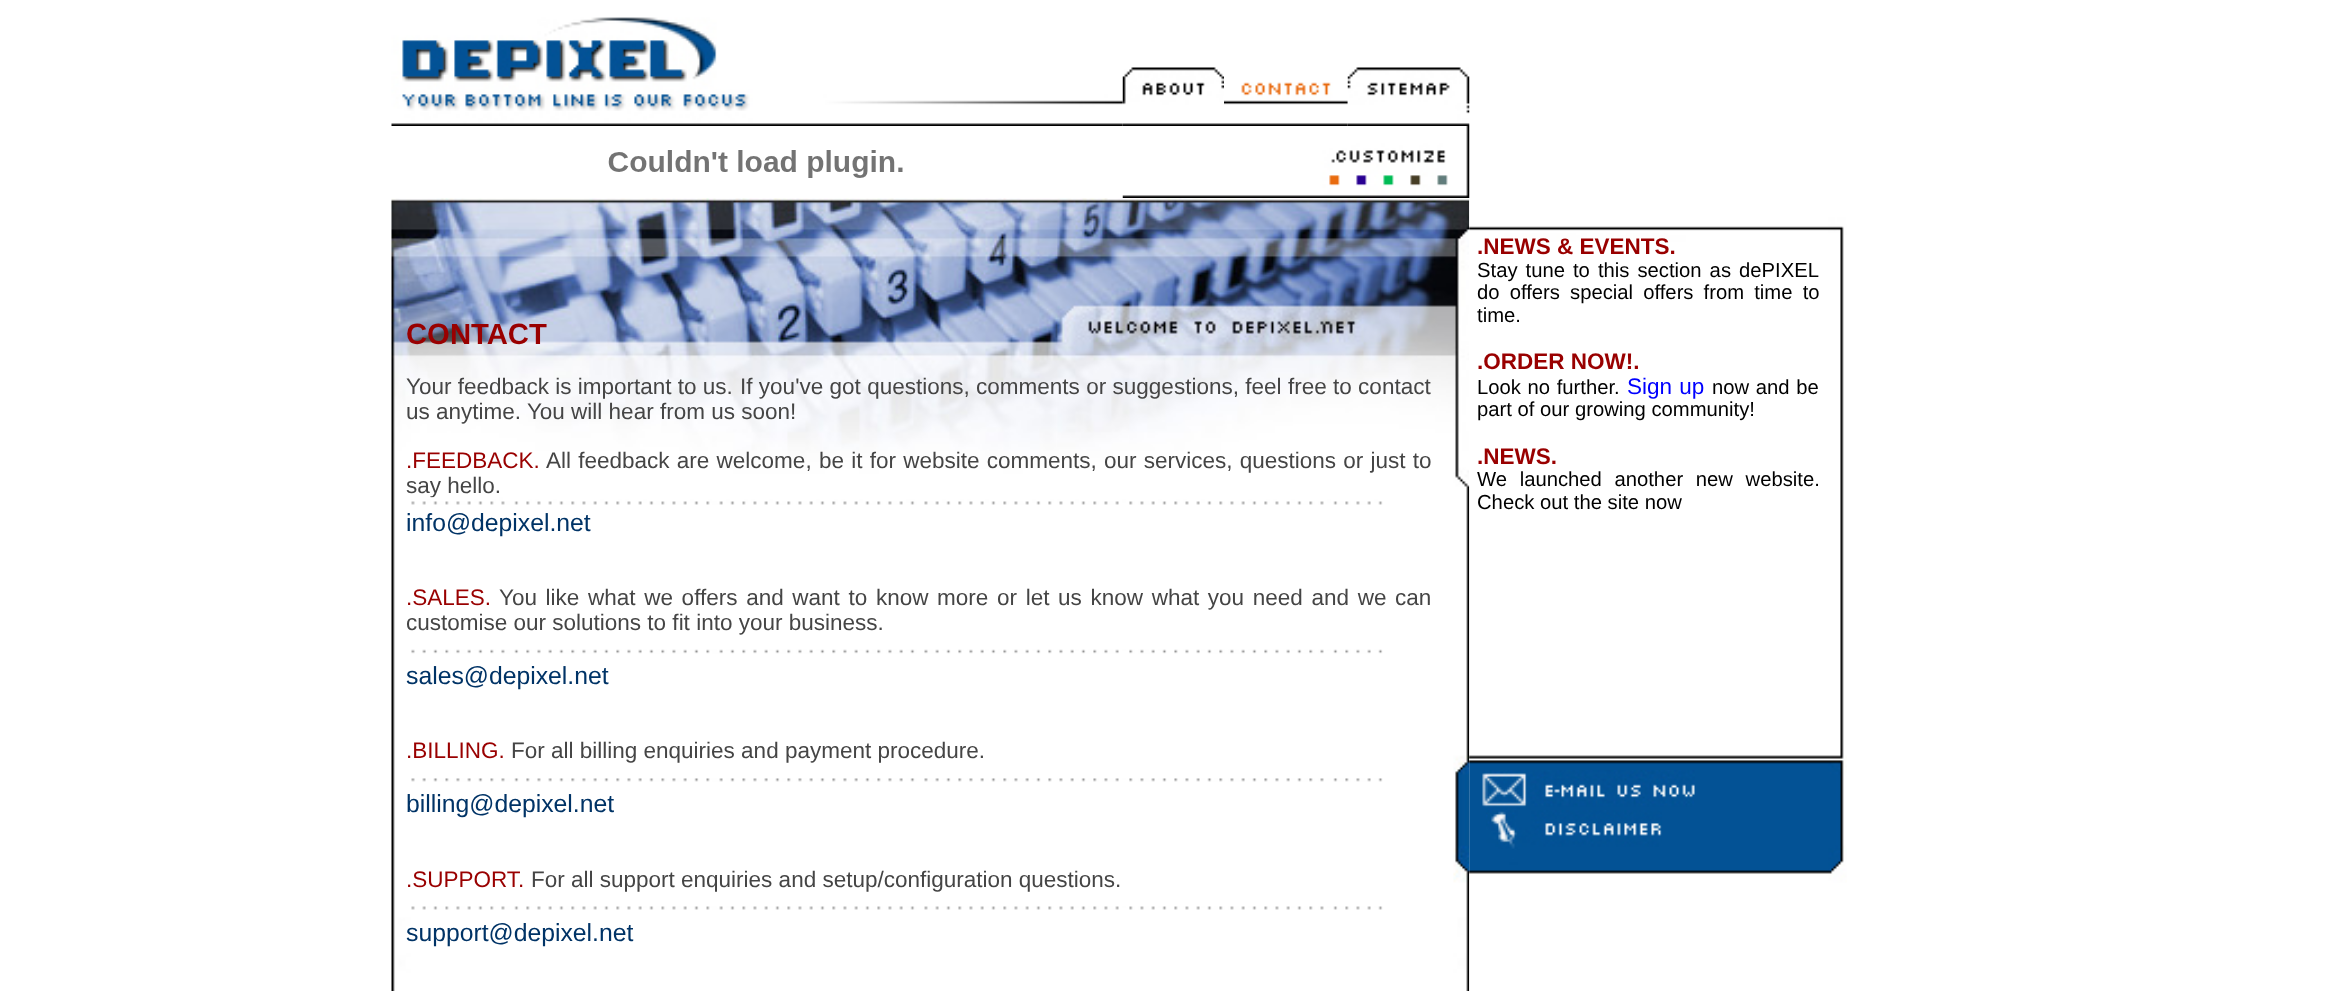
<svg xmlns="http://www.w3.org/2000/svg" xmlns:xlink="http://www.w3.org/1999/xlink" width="2338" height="991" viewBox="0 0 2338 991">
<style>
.cls-1{font:bold 29.25px Liberation Sans;fill:#990000}
.cls-2{font:22.5px Liberation Sans;fill:#454545}
.cls-3{font:22.5px Liberation Sans;fill:#990000}
.cls-4{font:24.75px Liberation Sans;fill:#003366}
.cls-5{font:bold 22.5px Liberation Sans;fill:#990000}
.cls-6{font:20.25px Liberation Sans;fill:#000000}
.cls-7{font:22.5px Liberation Sans;fill:#0000ff}
</style>
<rect width="100%" height="100%" fill="#ffffff"/>
<image xlink:href="image0.png" x="391" y="17" width="732" height="109"/>
<image xlink:href="image1.png" x="1122" y="67" width="102" height="59"/>
<image xlink:href="image2.png" x="1224" y="82" width="124" height="44"/>
<image xlink:href="image3.png" x="1347" y="67" width="123" height="59"/>
<image xlink:href="image4.png" x="608" y="150" width="295" height="28"/>
<image xlink:href="image5.png" x="1122" y="126" width="348" height="72"/>
<image xlink:href="image6.png" x="391" y="198" width="1079" height="793"/>
<image xlink:href="image8.png" x="411" y="649" width="972" height="5"/>
<image xlink:href="image9.png" x="411" y="778" width="972" height="4"/>
<image xlink:href="image10.png" x="411" y="906" width="972" height="4"/>
<image xlink:href="image11.png" x="1469" y="199" width="378" height="792"/>
<image xlink:href="image12.png" x="1482" y="770" width="213" height="40"/>
<image xlink:href="image13.png" x="1486" y="810" width="176" height="39"/>
<text class="cls-1" x="406" y="344">CONTACT</text>
<text class="cls-2" x="406" y="394">Your feedback is important to us.</text>
<text class="cls-2" x="740" y="394" word-spacing="0.1">If you've got questions, comments or suggestions, feel free to contact</text>
<text class="cls-2" x="406" y="419">us anytime. You will hear from us soon!</text>
<text class="cls-3" x="406" y="468">.FEEDBACK.</text>
<text class="cls-2" x="546" y="468" word-spacing="1">All feedback are welcome, be it for website comments, our services, questions or just to</text>
<text class="cls-2" x="406" y="493">say hello.</text>
<image xlink:href="image7.png" x="411" y="497" width="972" height="8"/>
<text class="cls-4" x="406" y="531">info@depixel.net</text>
<text class="cls-3" x="406" y="605">.SALES.</text>
<text class="cls-2" x="499" y="605" word-spacing="2.4">You like what we offers and want to know more or let us know what you need and we can</text>
<text class="cls-2" x="406" y="630">customise our solutions to fit into your business.</text>
<text class="cls-4" x="406" y="684">sales@depixel.net</text>
<text class="cls-3" x="406" y="758">.BILLING.</text>
<text class="cls-2" x="511" y="758">For all billing enquiries and payment procedure.</text>
<text class="cls-4" x="406" y="812">billing@depixel.net</text>
<text class="cls-3" x="406" y="887">.SUPPORT.</text>
<text class="cls-2" x="531" y="887">For all support enquiries and setup/configuration questions.</text>
<text class="cls-4" x="406" y="941">support@depixel.net</text>
<text class="cls-5" x="1477" y="254">.NEWS &amp; EVENTS.</text>
<text class="cls-6"><tspan x="1477" y="277" word-spacing="2.4">Stay tune to this section as dePIXEL</tspan><tspan x="1477" y="299" word-spacing="4.5">do offers special offers from time to</tspan><tspan x="1477" y="322">time.</tspan></text>
<text class="cls-5" x="1477" y="369">.ORDER NOW!.</text>
<text class="cls-6" x="1477" y="394" word-spacing="1">Look no further.</text>
<text class="cls-7" x="1627" y="394" word-spacing="1">Sign up</text>
<text class="cls-6" x="1712" y="394" word-spacing="1">now and be</text>
<text class="cls-6" x="1477" y="416">part of our growing community!</text>
<text class="cls-5" x="1477" y="464">.NEWS.</text>
<text class="cls-6"><tspan x="1477" y="486" word-spacing="7">We launched another new website.</tspan><tspan x="1477" y="509">Check out the site now</tspan></text>
</svg>
